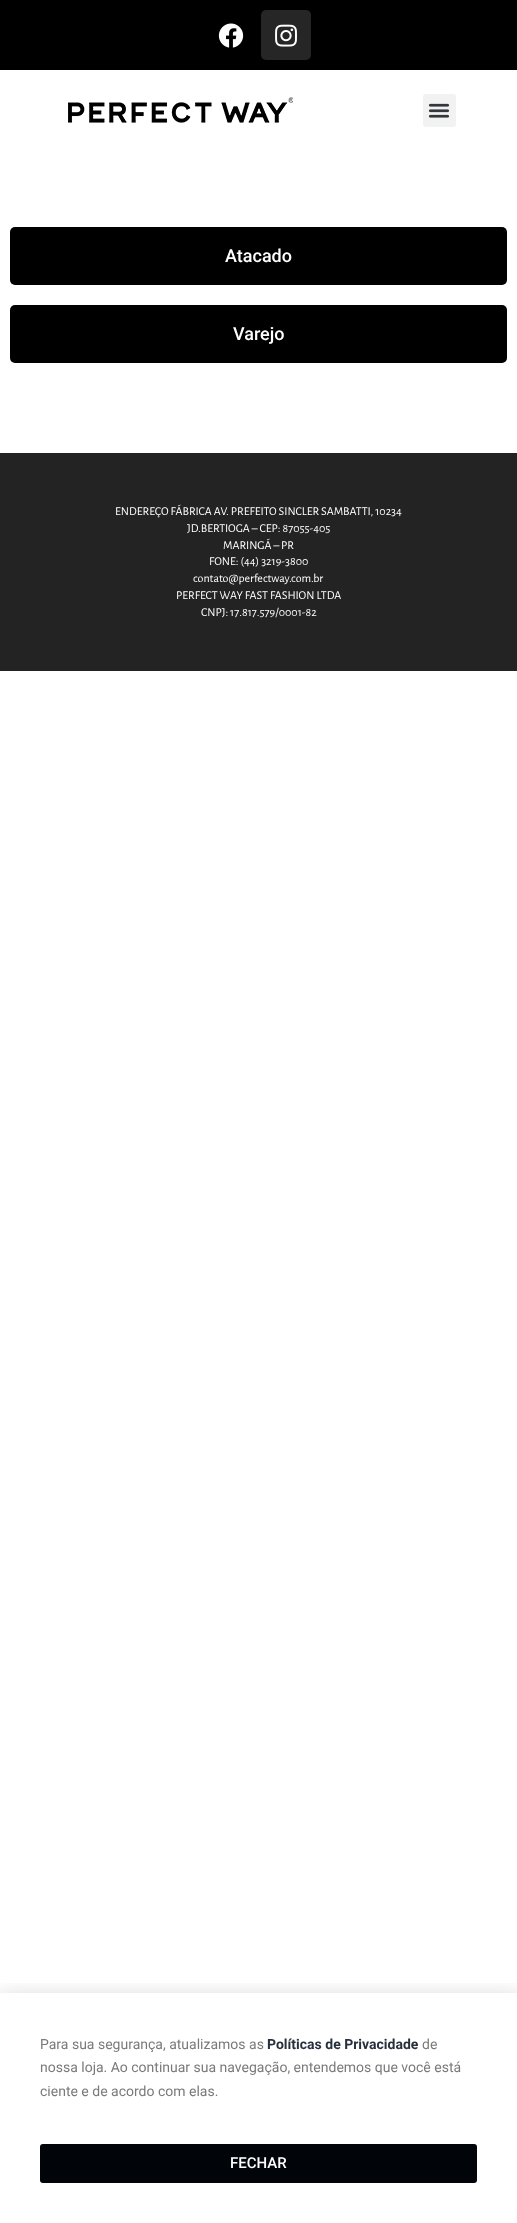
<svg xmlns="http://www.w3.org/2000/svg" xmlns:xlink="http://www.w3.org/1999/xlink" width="517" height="2223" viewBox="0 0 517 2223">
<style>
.cls-1{font:500 18px Roboto;fill:#ffffff}
.cls-2{font:12px Alegreya Sans;fill:#ffffff}
.cls-3{font:14px Roboto;fill:#7a7a7a}
.cls-4{font:bold 14px Roboto;fill:#28303d}
.cls-5{font:500 15px Roboto;fill:#ffffff}
</style>
<defs>
<clipPath id="clip1"><rect x="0" y="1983" width="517" height="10"/></clipPath>
</defs>
<rect width="100%" height="100%" fill="#ffffff"/>
<rect fill="#000000" x="0" y="0" width="517" height="70"/>
<image xlink:href="image0.png" x="218" y="23" width="26" height="25"/>
<rect fill="#262626" x="261" y="10" width="50" height="50" rx="5"/>
<image xlink:href="image1.png" x="275" y="24" width="22" height="23"/>
<image xlink:href="image2.png" x="68" y="97" width="225" height="26"/>
<rect fill="#f2f2f2" x="423" y="94" width="33" height="33" rx="3"/>
<image xlink:href="image3.png" x="428" y="103" width="22" height="15"/>
<rect fill="#000000" x="10" y="227" width="497" height="58" rx="5"/>
<rect fill="#000000" x="10" y="305" width="497" height="58" rx="5"/>
<rect fill="#232323" x="0" y="453" width="517" height="218"/>
<g clip-path="url(#clip1)">
<rect fill="#000000" fill-opacity="0.2" filter="blur(11.5px)" x="-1" y="1998" width="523" height="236"/>
</g>
<rect fill="#01050a" x="40" y="2144" width="437" height="39" rx="3"/>
<text class="cls-1" x="225" y="262">Atacado</text>
<text class="cls-1" x="233" y="340">Varejo</text>
<text class="cls-2" x="115" y="515">ENDEREÇO FÁBRICA AV. PREFEITO SINCLER SAMBATTI, 10234</text>
<text class="cls-2" x="187" y="532">JD.BERTIOGA – CEP: 87055-405</text>
<text class="cls-2" x="223" y="549">MARINGÁ – PR</text>
<text class="cls-2" x="209" y="565">FONE: (44) 3219-3800</text>
<text class="cls-2" x="193" y="582">contato@perfectway.com.br</text>
<text class="cls-2" x="176" y="599">PERFECT WAY FAST FASHION LTDA</text>
<text class="cls-2" x="201" y="616">CNPJ: 17.817.579/0001-82</text>
<text class="cls-3" x="40" y="2049">Para sua segurança, atualizamos as</text>
<text class="cls-4" x="267" y="2049">Políticas de Privacidade</text>
<text class="cls-3" x="422" y="2049">de</text>
<text class="cls-3"><tspan x="40" y="2072">nossa loja. Ao continuar sua navegação, entendemos que você está</tspan><tspan x="40" y="2096">ciente e de acordo com elas.</tspan></text>
<text class="cls-5" x="230" y="2168">FECHAR</text>
</svg>
